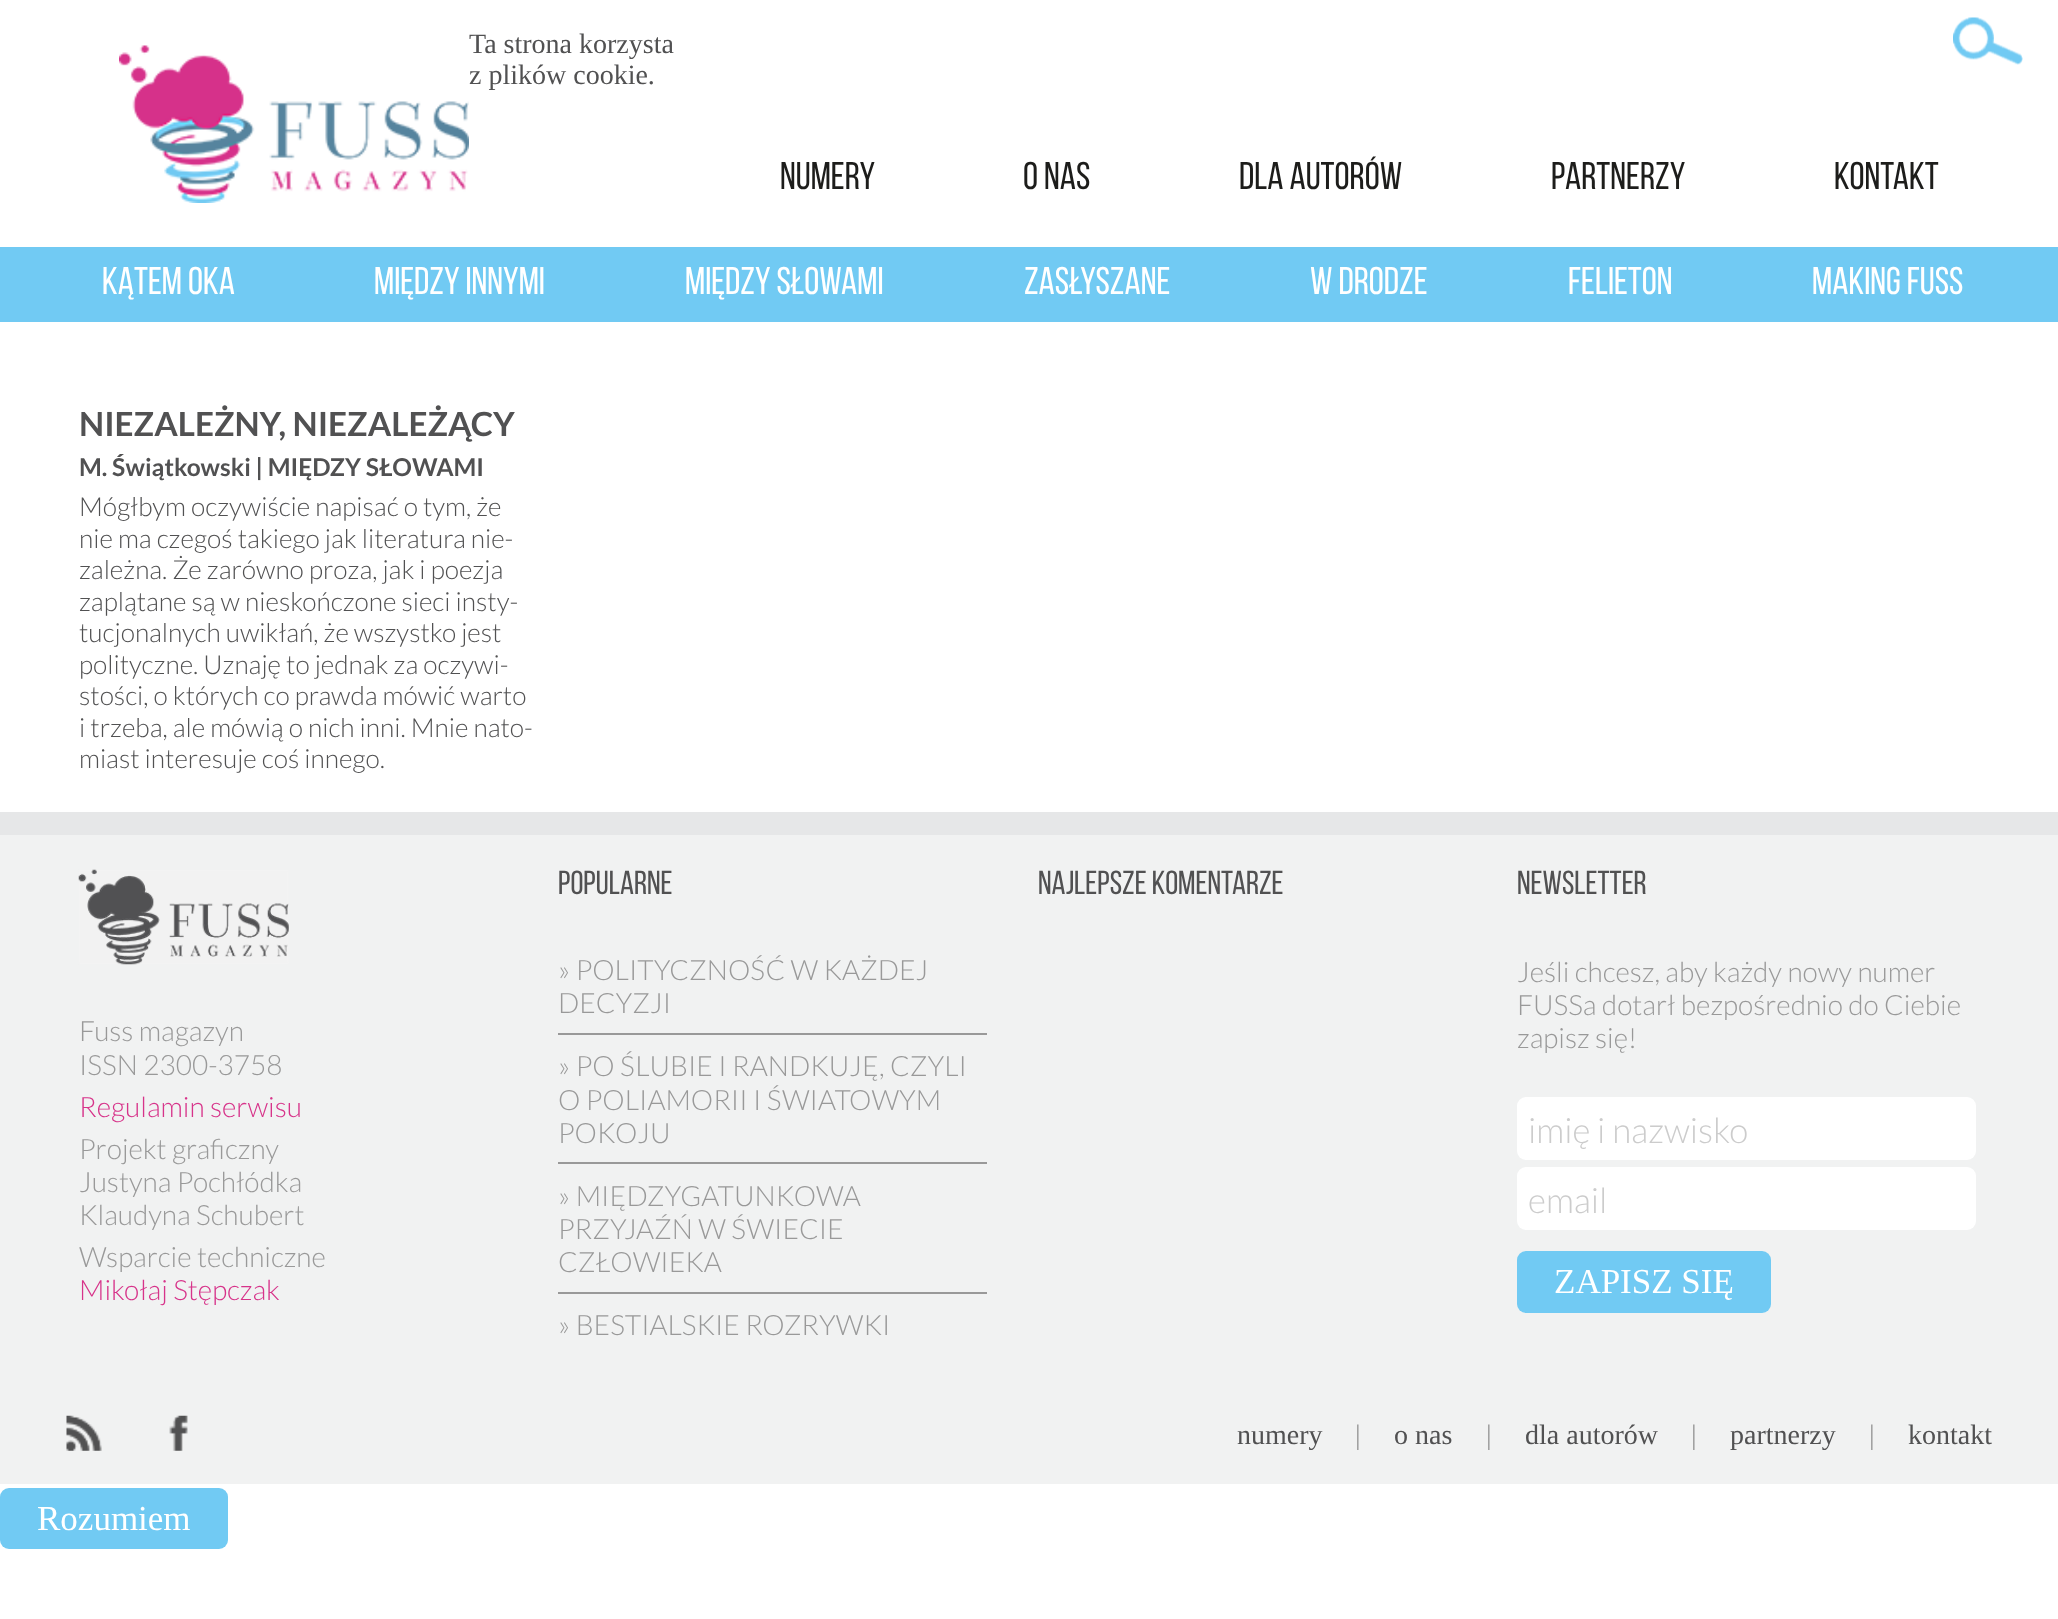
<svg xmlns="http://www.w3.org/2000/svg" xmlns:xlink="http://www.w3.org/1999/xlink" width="2058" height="1619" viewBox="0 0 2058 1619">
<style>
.cls-1{font:28px Liberation Serif;fill:#515152}
.cls-2{font:35px Liberation Serif;fill:#ffffff}
.cls-3{font:38.5px Bebas Neue;fill:#1d1d1b}
.cls-4{font:38.5px Bebas Neue;fill:#ffffff}
.cls-5{font:bold 33.25px Lato;fill:#515152}
.cls-6{font:bold 24.5px Lato;fill:#515152}
.cls-7{font:300 26.25px Lato;fill:#515152}
.cls-8{font:300 28px Lato;fill:#999999}
.cls-9{font:300 28px Lato;fill:#d7338a}
.cls-10{font:33.25px Bebas Neue;fill:#515152}
.cls-11{font:300 35px Lato;fill:#cccccc}
.cls-12{font:28px Liberation Serif;fill:#999999}
</style>
<rect width="100%" height="100%" fill="#ffffff"/>
<rect fill="#71caf3" x="0" y="1488" width="228" height="61" rx="9"/>
<image xlink:href="image0.png" x="119" y="45" width="350" height="158"/>
<image xlink:href="image1.png" x="1953" y="17" width="70" height="48"/>
<rect fill="#71caf3" x="0" y="247" width="2058" height="75"/>
<rect fill="#f1f2f2" x="0" y="835" width="2058" height="649"/>
<rect fill="#e6e7e8" x="0" y="812" width="2058" height="23"/>
<image xlink:href="image2.png" x="78" y="869" width="211" height="96"/>
<rect fill="#999999" x="558" y="1033" width="429" height="2"/>
<rect fill="#999999" x="558" y="1162" width="429" height="2"/>
<rect fill="#999999" x="558" y="1292" width="429" height="2"/>
<rect fill="#ffffff" x="1517" y="1097" width="459" height="63" rx="9"/>
<rect fill="#ffffff" x="1517" y="1167" width="459" height="63" rx="9"/>
<rect fill="#71caf3" x="1517" y="1251" width="254" height="62" rx="9"/>
<image xlink:href="image3.png" x="66" y="1415" width="36" height="36"/>
<image xlink:href="image4.png" x="169" y="1415" width="19" height="36"/>
<text class="cls-1"><tspan x="469" y="53">Ta strona korzysta</tspan><tspan x="469" y="84">z plików cookie.</tspan></text>
<text class="cls-2" x="37" y="1530">Rozumiem</text>
<text class="cls-3" x="780" y="189">NUMERY</text>
<text class="cls-3" x="1023" y="189">O NAS</text>
<text class="cls-3" x="1239" y="189">DLA AUTORÓW</text>
<text class="cls-3" x="1551" y="189">PARTNERZY</text>
<text class="cls-3" x="1834" y="189">KONTAKT</text>
<text class="cls-4" x="102" y="294">KĄTEM OKA</text>
<text class="cls-4" x="374" y="294">MIĘDZY INNYMI</text>
<text class="cls-4" x="685" y="294">MIĘDZY SŁOWAMI</text>
<text class="cls-4" x="1024" y="294">ZASŁYSZANE</text>
<text class="cls-4" x="1310" y="294">W DRODZE</text>
<text class="cls-4" x="1568" y="294">FELIETON</text>
<text class="cls-4" x="1812" y="294">MAKING FUSS</text>
<text class="cls-5" x="79" y="436">NIEZALEŻNY, NIEZALEŻĄCY</text>
<text class="cls-6" x="79" y="476">M. Świątkowski | MIĘDZY SŁOWAMI</text>
<text class="cls-7"><tspan x="79" y="516">Mógłbym oczywiście napisać o tym, że</tspan><tspan x="79" y="548">nie ma czegoś takiego jak literatura nie-</tspan><tspan x="79" y="579">zależna. Że zarówno proza, jak i poezja</tspan><tspan x="79" y="611">zaplątane są w nieskończone sieci insty-</tspan><tspan x="79" y="642">tucjonalnych uwikłań, że wszystko jest</tspan><tspan x="79" y="674">polityczne. Uznaję to jednak za oczywi-</tspan><tspan x="79" y="705">stości, o których co prawda mówić warto</tspan><tspan x="79" y="737">i trzeba, ale mówią o nich inni. Mnie nato-</tspan><tspan x="79" y="768">miast interesuje coś innego.</tspan></text>
<text class="cls-8"><tspan x="79" y="1041">Fuss magazyn</tspan><tspan x="79" y="1075">ISSN 2300-3758</tspan></text>
<text class="cls-9" x="79" y="1117">Regulamin serwisu</text>
<text class="cls-8"><tspan x="79" y="1159">Projekt graficzny</tspan><tspan x="79" y="1192">Justyna Pochłódka</tspan><tspan x="79" y="1225">Klaudyna Schubert</tspan><tspan x="79" y="1267">Wsparcie techniczne</tspan></text>
<text class="cls-9" x="79" y="1300">Mikołaj Stępczak</text>
<text class="cls-10" x="558" y="894">POPULARNE</text>
<text class="cls-8"><tspan x="558" y="980">» POLITYCZNOŚĆ W KAŻDEJ</tspan><tspan x="558" y="1013">DECYZJI</tspan></text>
<text class="cls-8"><tspan x="558" y="1076">» PO ŚLUBIE I RANDKUJĘ, CZYLI</tspan><tspan x="558" y="1110">O POLIAMORII I ŚWIATOWYM</tspan><tspan x="558" y="1143">POKOJU</tspan></text>
<text class="cls-8"><tspan x="558" y="1206">» MIĘDZYGATUNKOWA</tspan><tspan x="558" y="1239">PRZYJAŹŃ W ŚWIECIE</tspan><tspan x="558" y="1272">CZŁOWIEKA</tspan></text>
<text class="cls-8" x="558" y="1335">» BESTIALSKIE ROZRYWKI</text>
<text class="cls-10" x="1038" y="894">NAJLEPSZE KOMENTARZE</text>
<text class="cls-10" x="1517" y="894">NEWSLETTER</text>
<text class="cls-8"><tspan x="1517" y="982">Jeśli chcesz, aby każdy nowy numer</tspan><tspan x="1517" y="1015">FUSSa dotarł bezpośrednio do Ciebie</tspan><tspan x="1517" y="1048">zapisz się!</tspan></text>
<text class="cls-11" x="1528" y="1143">imię i nazwisko</text>
<text class="cls-11" x="1528" y="1213">email</text>
<text class="cls-2" x="1554" y="1293">ZAPISZ SIĘ</text>
<text class="cls-1" x="1237" y="1444">numery</text>
<text class="cls-12" x="1355" y="1444">|</text>
<text class="cls-1" x="1394" y="1444">o nas</text>
<text class="cls-12" x="1486" y="1444">|</text>
<text class="cls-1" x="1525" y="1444">dla autorów</text>
<text class="cls-12" x="1691" y="1444">|</text>
<text class="cls-1" x="1730" y="1444">partnerzy</text>
<text class="cls-12" x="1869" y="1444">|</text>
<text class="cls-1" x="1908" y="1444">kontakt</text>
</svg>
